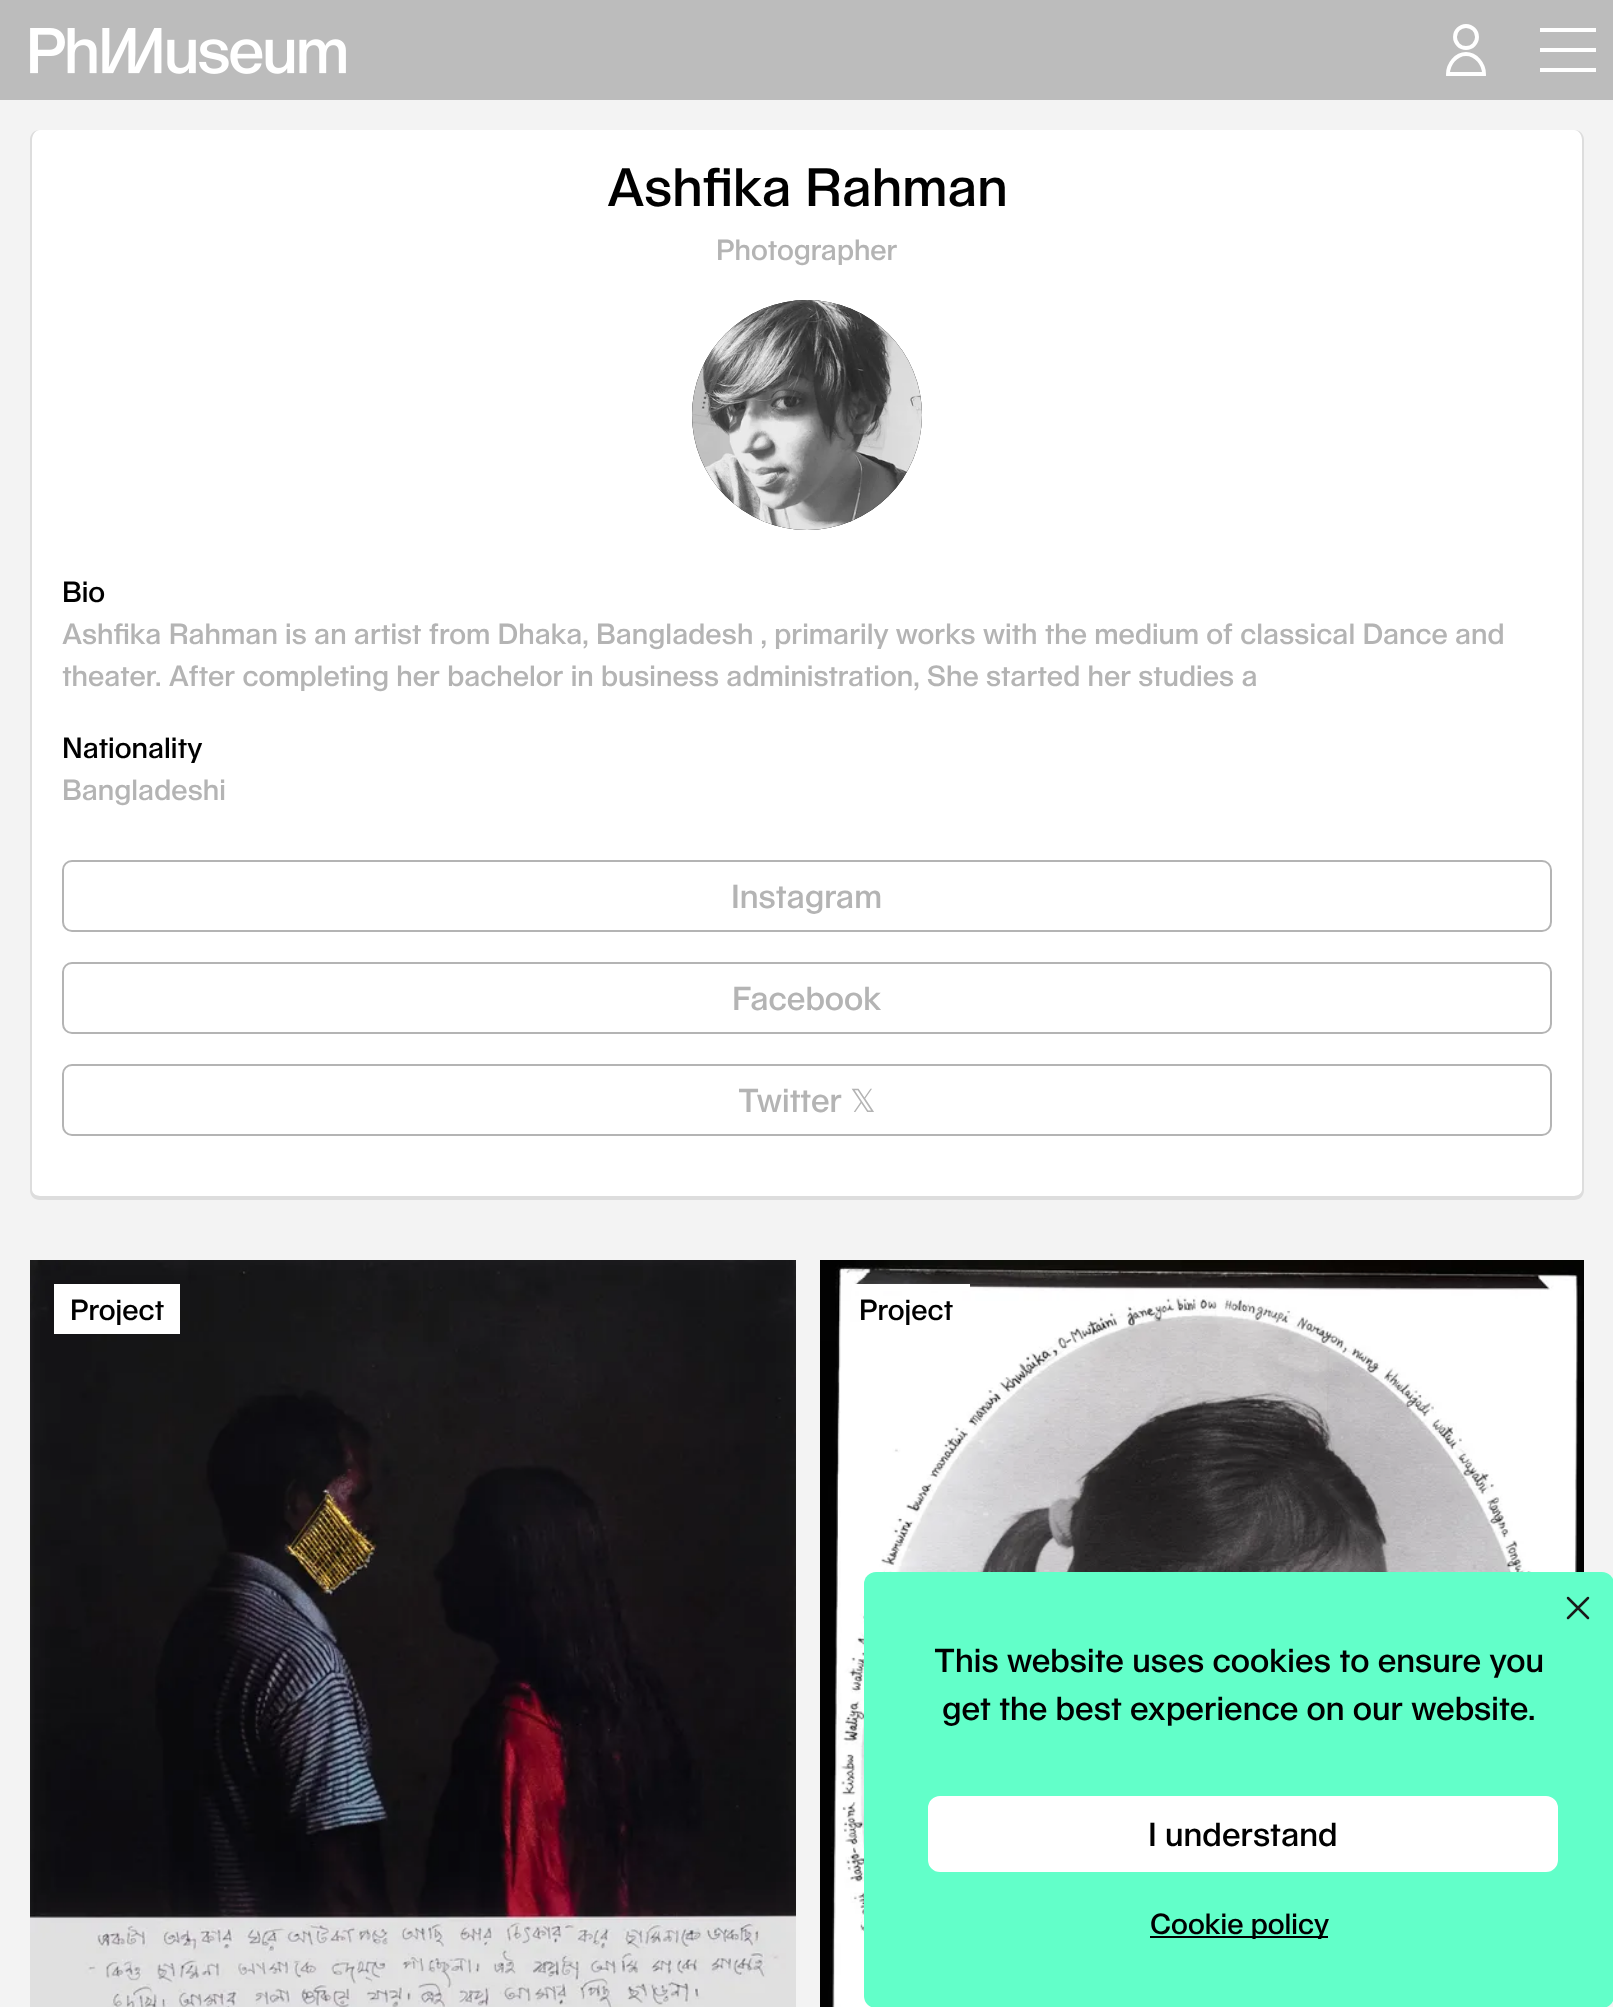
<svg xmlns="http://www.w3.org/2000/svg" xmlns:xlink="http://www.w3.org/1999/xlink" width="1613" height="2007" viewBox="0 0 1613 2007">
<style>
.cls-1{font:500 52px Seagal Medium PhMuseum;fill:#000000}
.cls-2{font:500 28px Seagal Medium PhMuseum;fill:#b4b4b4}
.cls-3{font:500 28px Seagal Medium PhMuseum;fill:#000000}
.cls-4{font:500 32px Seagal Medium PhMuseum;fill:#b4b4b4}
.cls-5{font:32px DejaVu Sans;fill:#b4b4b4}
.cls-6{font:500 32px Seagal Medium PhMuseum;fill:#000000}
</style>
<rect width="100%" height="100%" fill="#f3f3f3"/>
<rect fill="#bcbcbc" x="0" y="0" width="1613" height="100"/>
<circle fill="none" stroke="#ffffff" stroke-width="3.9" cx="1466" cy="37" r="11"/>
<path fill="none" stroke="#ffffff" stroke-width="3.9" d="M1484 74H1448C1448 64 1456 54 1466 54C1476 54 1484 64 1484 74Z"/>
<image xlink:href="image0.png" x="30" y="28" width="316" height="46"/>
<rect fill="#ffffff" x="1540" y="28" width="56" height="4"/>
<rect fill="#ffffff" x="1540" y="48" width="56" height="4"/>
<rect fill="#ffffff" x="1540" y="68" width="56" height="4"/>
<path fill="#ffffff" d="M40 130H1574C1578 130 1582 134 1582 140V1190C1582 1193 1578 1196 1574 1196H40C36 1196 32 1193 32 1190V140C32 134 36 130 40 130Z"/>
<path fill="#dddddd" fill-rule="evenodd" d="M40 130H1574C1580 130 1584 134 1584 140V1190C1584 1196 1580 1200 1574 1200H40C34 1200 30 1196 30 1190V140C30 134 34 130 40 130ZM40 130H1574C1578 130 1582 134 1582 140V1190C1582 1193 1578 1196 1574 1196H40C36 1196 32 1193 32 1190V140C32 134 36 130 40 130Z"/>
<circle fill="#000000" cx="807" cy="415" r="115"/>
<image xlink:href="image1.png" x="692" y="300" width="230" height="230"/>
<rect fill="none" stroke="#b4b4b4" stroke-width="2" x="63" y="861" width="1488" height="70" rx="9"/>
<rect fill="none" stroke="#b4b4b4" stroke-width="2" x="63" y="963" width="1488" height="70" rx="9"/>
<rect fill="none" stroke="#b4b4b4" stroke-width="2" x="63" y="1065" width="1488" height="70" rx="9"/>
<image xlink:href="image2.png" x="30" y="1260" width="766" height="747"/>
<rect fill="#ffffff" x="54" y="1284" width="126" height="50"/>
<image xlink:href="image3.png" x="820" y="1260" width="764" height="747"/>
<rect fill="#ffffff" x="852" y="1284" width="118" height="7"/>
<rect fill="#62ffc9" x="864" y="1572" width="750" height="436" rx="12"/>
<path fill="none" stroke="#1a1a1a" stroke-width="2.5" stroke-linecap="round" stroke-linejoin="round" d="M1568 1618L1588 1598M1568 1598L1588 1618"/>
<rect fill="#ffffff" stroke="#ffffff" stroke-width="2" x="929" y="1797" width="628" height="74" rx="11"/>
<rect fill="#000000" x="1150" y="1936" width="178" height="2"/>
<text class="cls-1" x="607" y="206">Ashfika Rahman</text>
<text class="cls-2" x="716" y="260">Photographer</text>
<text class="cls-3" x="62" y="602">Bio</text>
<text class="cls-2"><tspan x="62" y="644">Ashfika Rahman is an artist from Dhaka, Bangladesh , primarily works with the medium of classical Dance and</tspan><tspan x="62" y="686">theater. After completing her bachelor in business administration, She started her studies a</tspan></text>
<text class="cls-3" x="62" y="758">Nationality</text>
<text class="cls-2" x="62" y="800">Bangladeshi</text>
<text class="cls-4" x="731" y="908">Instagram</text>
<text class="cls-4" x="732" y="1010">Facebook</text>
<text class="cls-4" x="738" y="1112">Twitter</text>
<text class="cls-5" x="850" y="1112">𝕏</text>
<text class="cls-3" x="70" y="1320">Project</text>
<text class="cls-3" x="859" y="1320">Project</text>
<text class="cls-6" x="934" y="1672">This website uses cookies to ensure you</text>
<text class="cls-6" x="942" y="1720">get the best experience on our website.</text>
<text class="cls-6" x="1148" y="1846">I understand</text>
<text class="cls-3" x="1150" y="1934">Cookie policy</text>
</svg>
